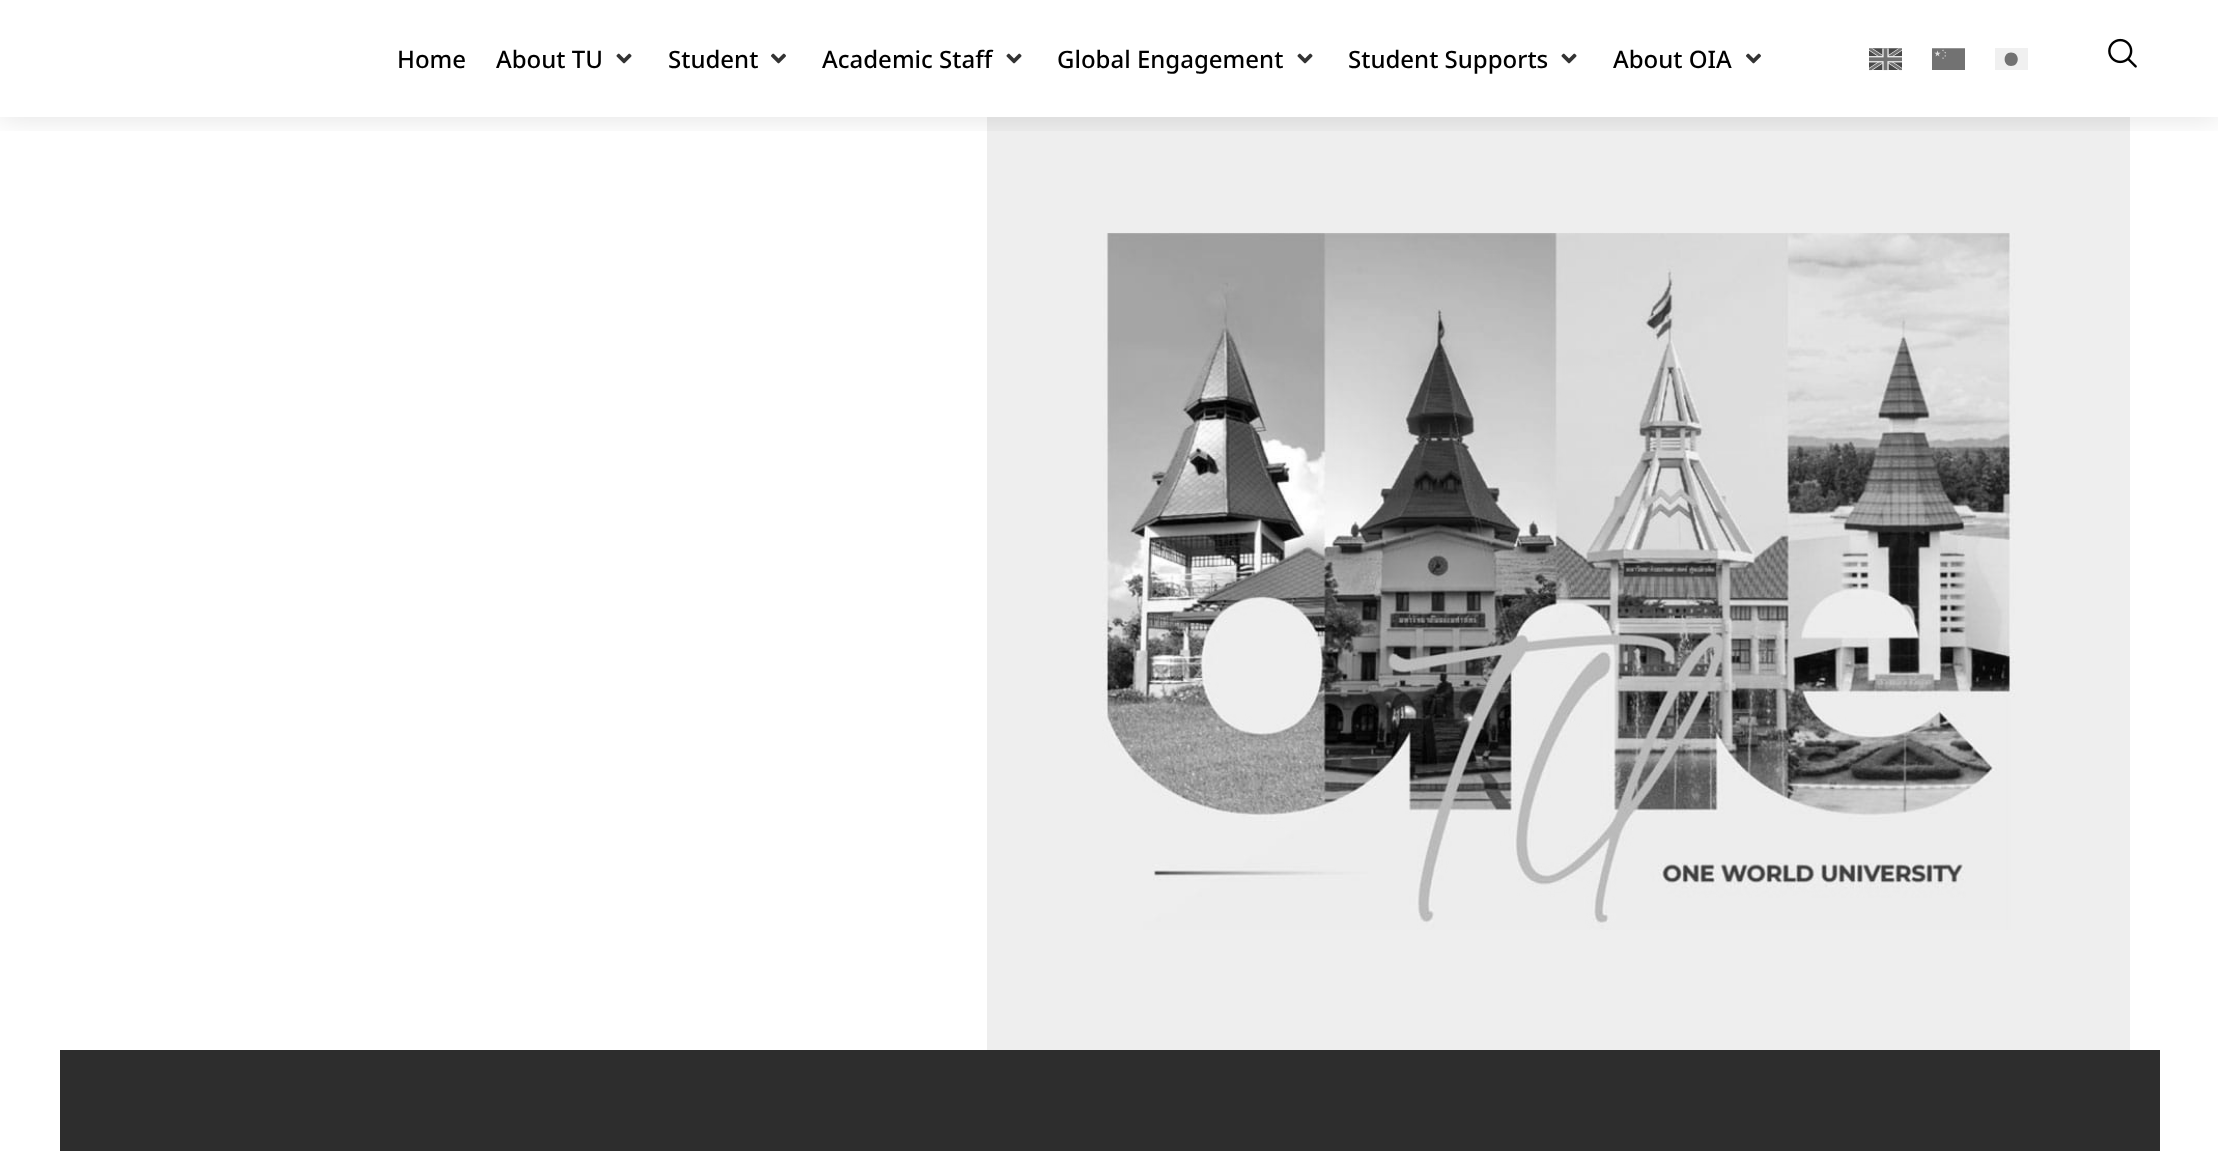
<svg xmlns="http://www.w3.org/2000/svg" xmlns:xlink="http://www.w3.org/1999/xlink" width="2218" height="1151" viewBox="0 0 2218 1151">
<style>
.cls-1{font:500 24px Noto Sans;fill:#000000}
</style>
<defs>
<clipPath id="clip1"><rect x="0" y="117" width="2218" height="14"/></clipPath>
</defs>
<rect width="100%" height="100%" fill="#ffffff"/>
<image xlink:href="image5.png" x="987" y="117" width="1143" height="933"/>
<g clip-path="url(#clip1)">
<rect fill="#000000" fill-opacity="0.12" filter="blur(15px)" x="0" y="0" width="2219" height="117"/>
</g>
<image xlink:href="image0.png" x="616" y="53" width="16" height="11"/>
<image xlink:href="image1.png" x="771" y="53" width="15" height="11"/>
<image xlink:href="image0.png" x="1006" y="53" width="16" height="11"/>
<image xlink:href="image0.png" x="1297" y="53" width="16" height="11"/>
<image xlink:href="image0.png" x="1561" y="53" width="16" height="11"/>
<image xlink:href="image1.png" x="1746" y="53" width="15" height="11"/>
<image xlink:href="image2.png" x="1869" y="48" width="33" height="23"/>
<image xlink:href="image3.png" x="1932" y="48" width="33" height="22"/>
<rect fill="#f0f0f0" x="1995" y="48" width="33" height="22"/>
<path fill="#727272" d="M2011 66C2020 66 2020 52.5 2011 52.5C2002.5 52.5 2002.5 66 2011 66Z"/>
<image xlink:href="image4.png" x="2108" y="38" width="29" height="30"/>
<rect fill="#2d2d2d" x="60" y="1050" width="2100" height="101"/>
<text class="cls-1" x="397" y="68">Home</text>
<text class="cls-1" x="496" y="68">About TU</text>
<text class="cls-1" x="668" y="68">Student</text>
<text class="cls-1" x="822" y="68">Academic Staff</text>
<text class="cls-1" x="1057" y="68">Global Engagement</text>
<text class="cls-1" x="1348" y="68">Student Supports</text>
<text class="cls-1" x="1613" y="68">About OIA</text>
</svg>
